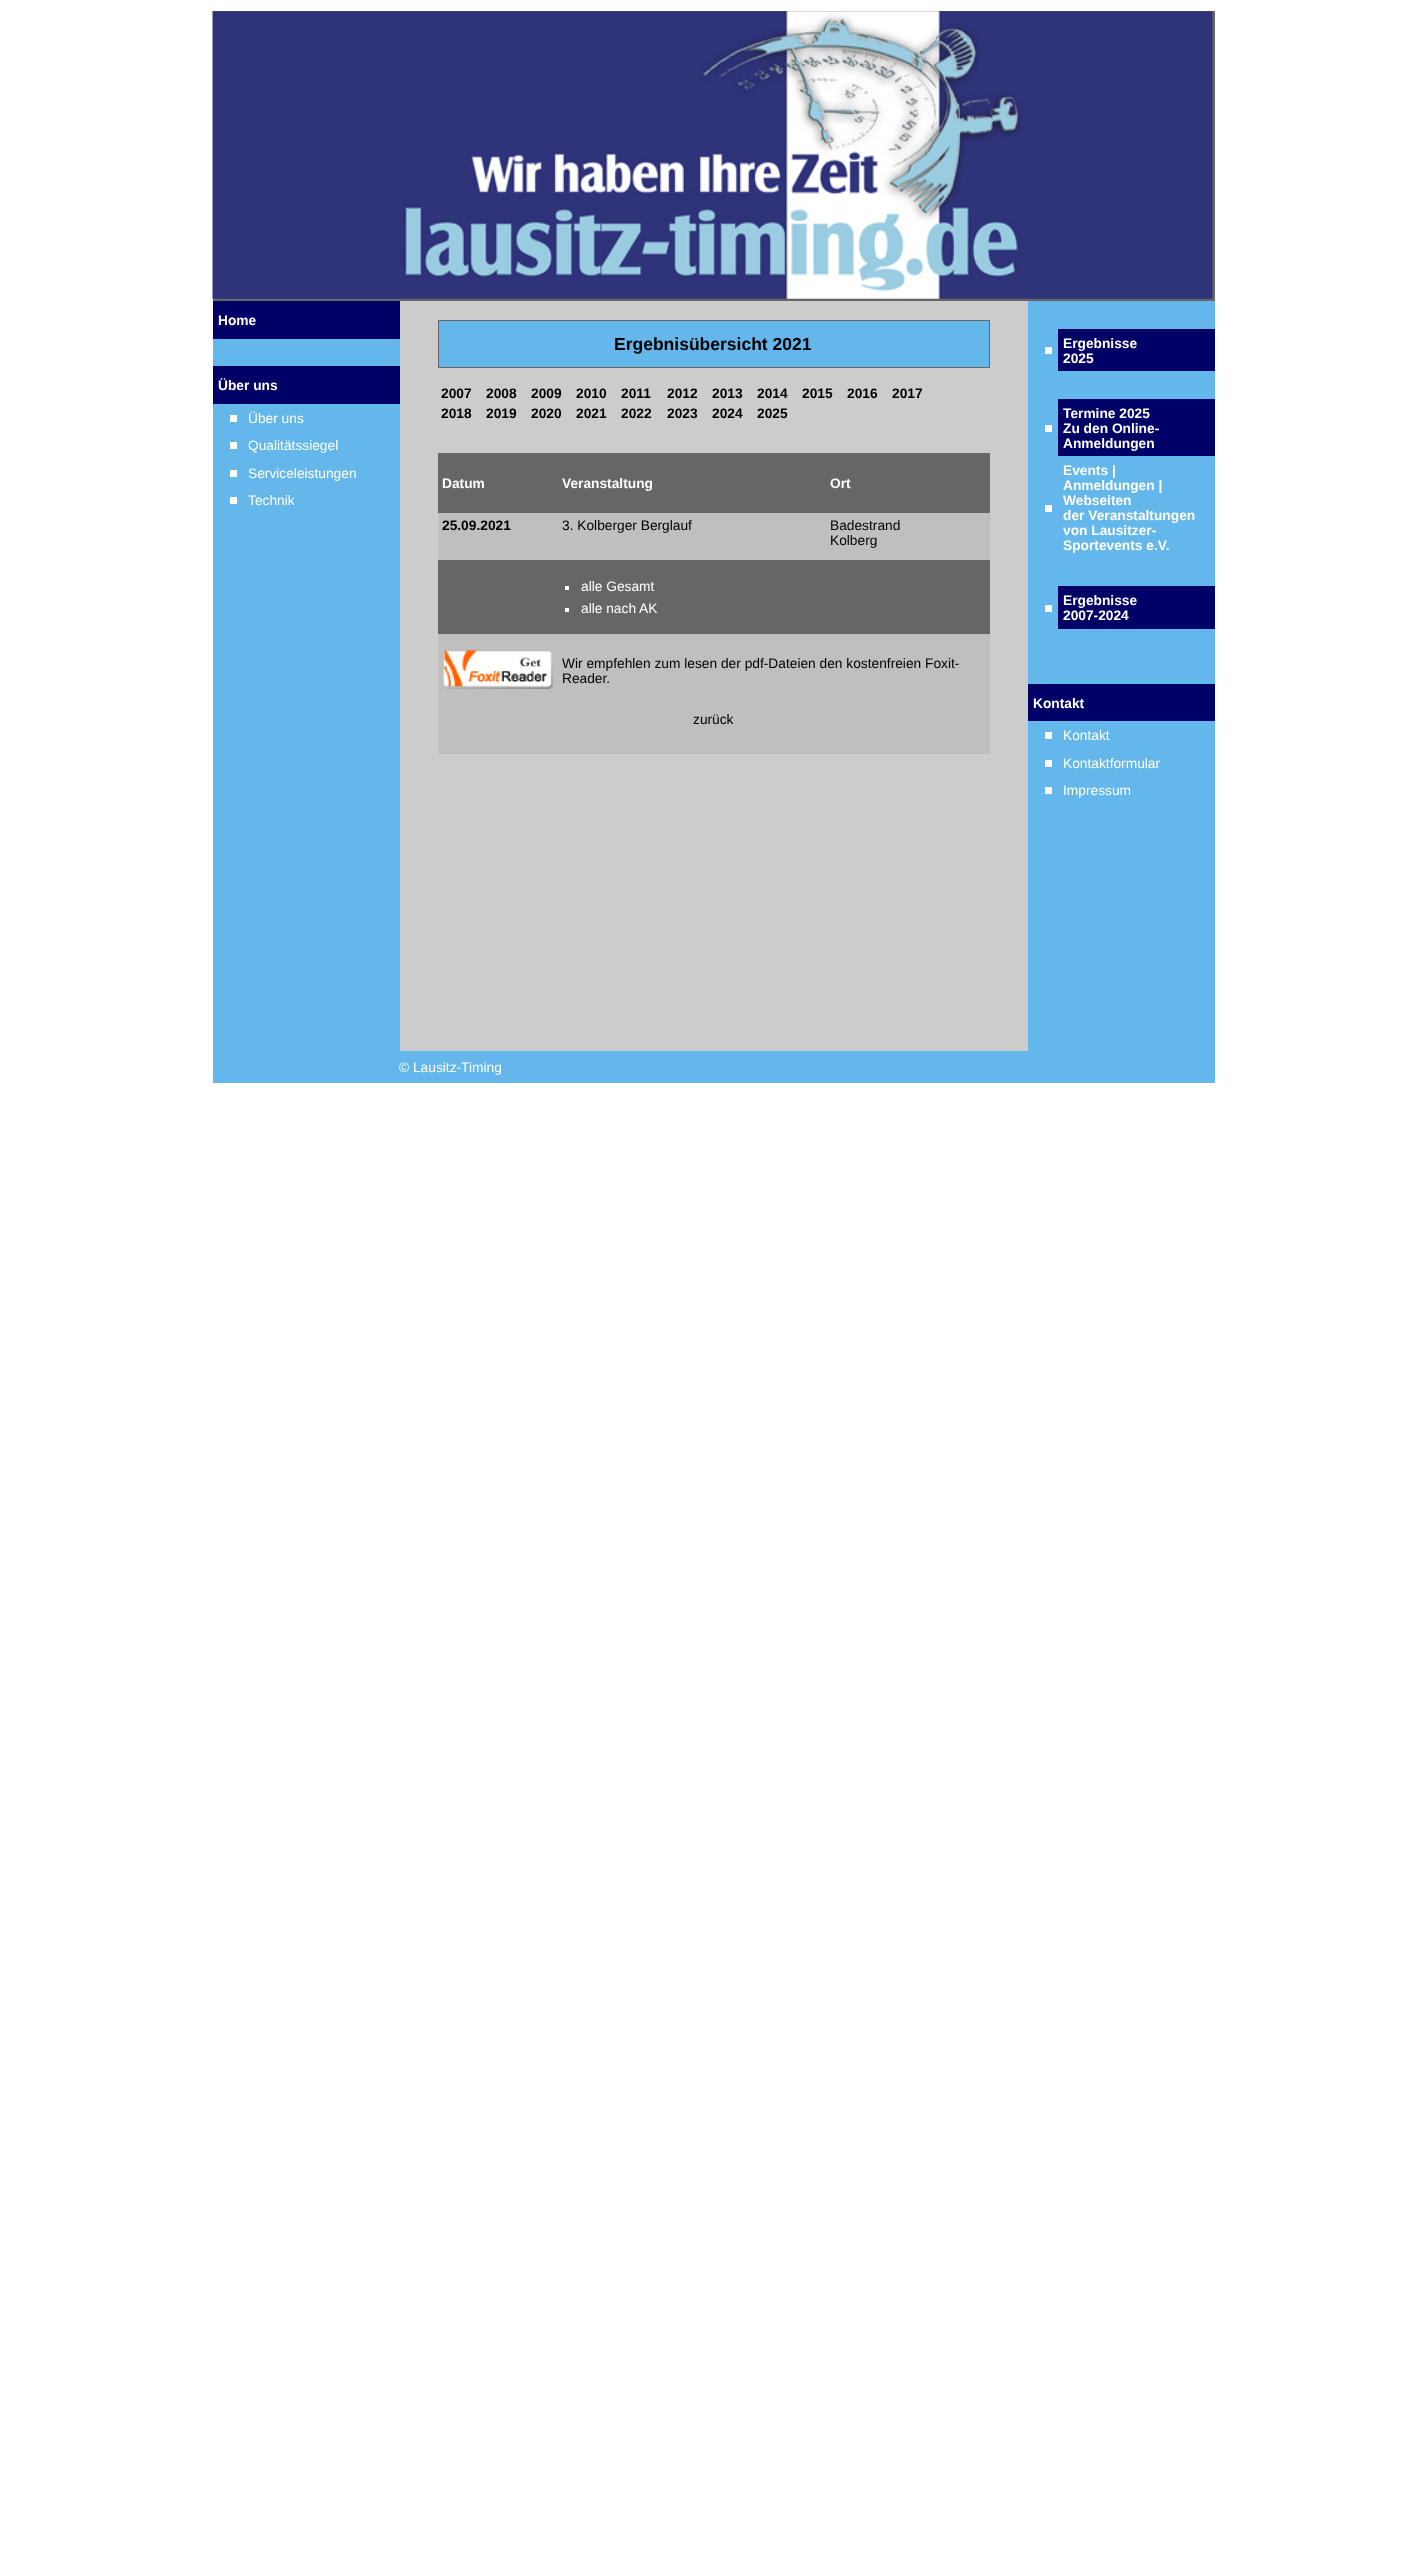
<svg xmlns="http://www.w3.org/2000/svg" xmlns:xlink="http://www.w3.org/1999/xlink" width="1426" height="2565" viewBox="0 0 1426 2565">
<style>
.cls-1{font:bold 13.75px Liberation Sans;fill:#ffffff}
.cls-2{font:13.75px Liberation Sans;fill:#ffffff}
.cls-3{font:bold 17.5px Liberation Sans;fill:#000000}
.cls-4{font:bold 13.75px Liberation Sans;fill:#000000}
.cls-5{font:13.75px Liberation Sans;fill:#000000}
</style>
<rect width="100%" height="100%" fill="#ffffff"/>
<rect fill="#666666" x="213" y="11" width="1002" height="290"/>
<image xlink:href="image0.png" x="212" y="11" width="1001" height="288"/>
<rect fill="#64b7eb" x="213" y="339" width="187" height="712"/>
<rect fill="#000066" x="213" y="301" width="187" height="38"/>
<rect fill="#000066" x="213" y="366" width="187" height="38"/>
<rect fill="#ffffff" x="230" y="415" width="7" height="7"/>
<rect fill="#ffffff" x="230" y="442" width="7" height="7"/>
<rect fill="#ffffff" x="230" y="470" width="7" height="7"/>
<rect fill="#ffffff" x="230" y="497" width="7" height="7"/>
<rect fill="#cccccc" x="400" y="301" width="628" height="750"/>
<rect fill="#64b7eb" stroke="#666666" x="438.5" y="320.5" width="551" height="47"/>
<rect fill="#666666" x="438" y="453" width="552" height="60"/>
<rect fill="#bfbfbf" x="438" y="513" width="552" height="47"/>
<rect fill="#666666" x="438" y="560" width="552" height="74"/>
<rect fill="#ffffff" x="565" y="586" width="4" height="4"/>
<rect fill="#ffffff" x="565" y="608" width="4" height="4"/>
<rect fill="#bfbfbf" x="438" y="634" width="552" height="120"/>
<image xlink:href="image1.png" x="443" y="650" width="110" height="39"/>
<rect fill="#64b7eb" x="1028" y="301" width="187" height="750"/>
<rect fill="#ffffff" x="1045" y="347" width="7" height="7"/>
<rect fill="#000066" x="1058" y="329" width="157" height="42"/>
<rect fill="#ffffff" x="1045" y="425" width="7" height="7"/>
<rect fill="#000066" x="1058" y="399" width="157" height="57"/>
<rect fill="#ffffff" x="1045" y="505" width="7" height="7"/>
<rect fill="#ffffff" x="1045" y="605" width="7" height="7"/>
<rect fill="#000066" x="1058" y="586" width="157" height="43"/>
<rect fill="#000066" x="1028" y="684" width="187" height="37"/>
<rect fill="#ffffff" x="1045" y="732" width="7" height="7"/>
<rect fill="#ffffff" x="1045" y="760" width="7" height="7"/>
<rect fill="#ffffff" x="1045" y="787" width="7" height="7"/>
<rect fill="#64b7eb" x="213" y="1051" width="1002" height="32"/>
<text class="cls-1" x="218" y="325">Home</text>
<text class="cls-1" x="218" y="390">Über uns</text>
<text class="cls-2"><tspan x="248" y="423">Über uns</tspan><tspan x="248" y="450">Qualitätssiegel</tspan></text>
<text class="cls-2"><tspan x="248" y="478">Serviceleistungen</tspan><tspan x="248" y="505">Technik</tspan></text>
<text class="cls-3" x="614" y="350">Ergebnisübersicht 2021</text>
<text class="cls-4" x="441" y="398">2007</text>
<text class="cls-4" x="486" y="398">2008</text>
<text class="cls-4" x="531" y="398">2009</text>
<text class="cls-4" x="576" y="398">2010</text>
<text class="cls-4" x="621" y="398">2011</text>
<text class="cls-4" x="667" y="398">2012</text>
<text class="cls-4" x="712" y="398">2013</text>
<text class="cls-4" x="757" y="398">2014</text>
<text class="cls-4" x="802" y="398">2015</text>
<text class="cls-4" x="847" y="398">2016</text>
<text class="cls-4" x="892" y="398">2017</text>
<text class="cls-4" x="441" y="418">2018</text>
<text class="cls-4" x="486" y="418">2019</text>
<text class="cls-4" x="531" y="418">2020</text>
<text class="cls-4" x="576" y="418">2021</text>
<text class="cls-4" x="621" y="418">2022</text>
<text class="cls-4" x="667" y="418">2023</text>
<text class="cls-4" x="712" y="418">2024</text>
<text class="cls-4" x="757" y="418">2025</text>
<text class="cls-1" x="442" y="488">Datum</text>
<text class="cls-1" x="562" y="488">Veranstaltung</text>
<text class="cls-1" x="830" y="488">Ort</text>
<text class="cls-4" x="442" y="530">25.09.2021</text>
<text class="cls-5" x="562" y="530">3. Kolberger Berglauf</text>
<text class="cls-5"><tspan x="830" y="530">Badestrand</tspan><tspan x="830" y="545">Kolberg</tspan></text>
<text class="cls-2"><tspan x="581" y="591">alle Gesamt</tspan><tspan x="581" y="613">alle nach AK</tspan></text>
<text class="cls-5"><tspan x="562" y="668">Wir empfehlen zum lesen der pdf-Dateien den kostenfreien Foxit-</tspan><tspan x="562" y="683">Reader.</tspan></text>
<text class="cls-5" x="693" y="724">zurück</text>
<text class="cls-1"><tspan x="1063" y="348">Ergebnisse</tspan><tspan x="1063" y="363">2025</tspan></text>
<text class="cls-1"><tspan x="1063" y="418">Termine 2025</tspan><tspan x="1063" y="433">Zu den Online-</tspan><tspan x="1063" y="448">Anmeldungen</tspan><tspan x="1063" y="475">Events |</tspan><tspan x="1063" y="490">Anmeldungen |</tspan><tspan x="1063" y="505">Webseiten</tspan><tspan x="1063" y="520">der Veranstaltungen</tspan><tspan x="1063" y="535">von Lausitzer-</tspan><tspan x="1063" y="550">Sportevents e.V.</tspan></text>
<text class="cls-1"><tspan x="1063" y="605">Ergebnisse</tspan><tspan x="1063" y="620">2007-2024</tspan></text>
<text class="cls-1" x="1033" y="708">Kontakt</text>
<text class="cls-2" x="1063" y="740">Kontakt</text>
<text class="cls-2"><tspan x="1063" y="768">Kontaktformular</tspan><tspan x="1063" y="795">Impressum</tspan></text>
<text class="cls-2" x="399" y="1072">© Lausitz-Timing</text>
</svg>
